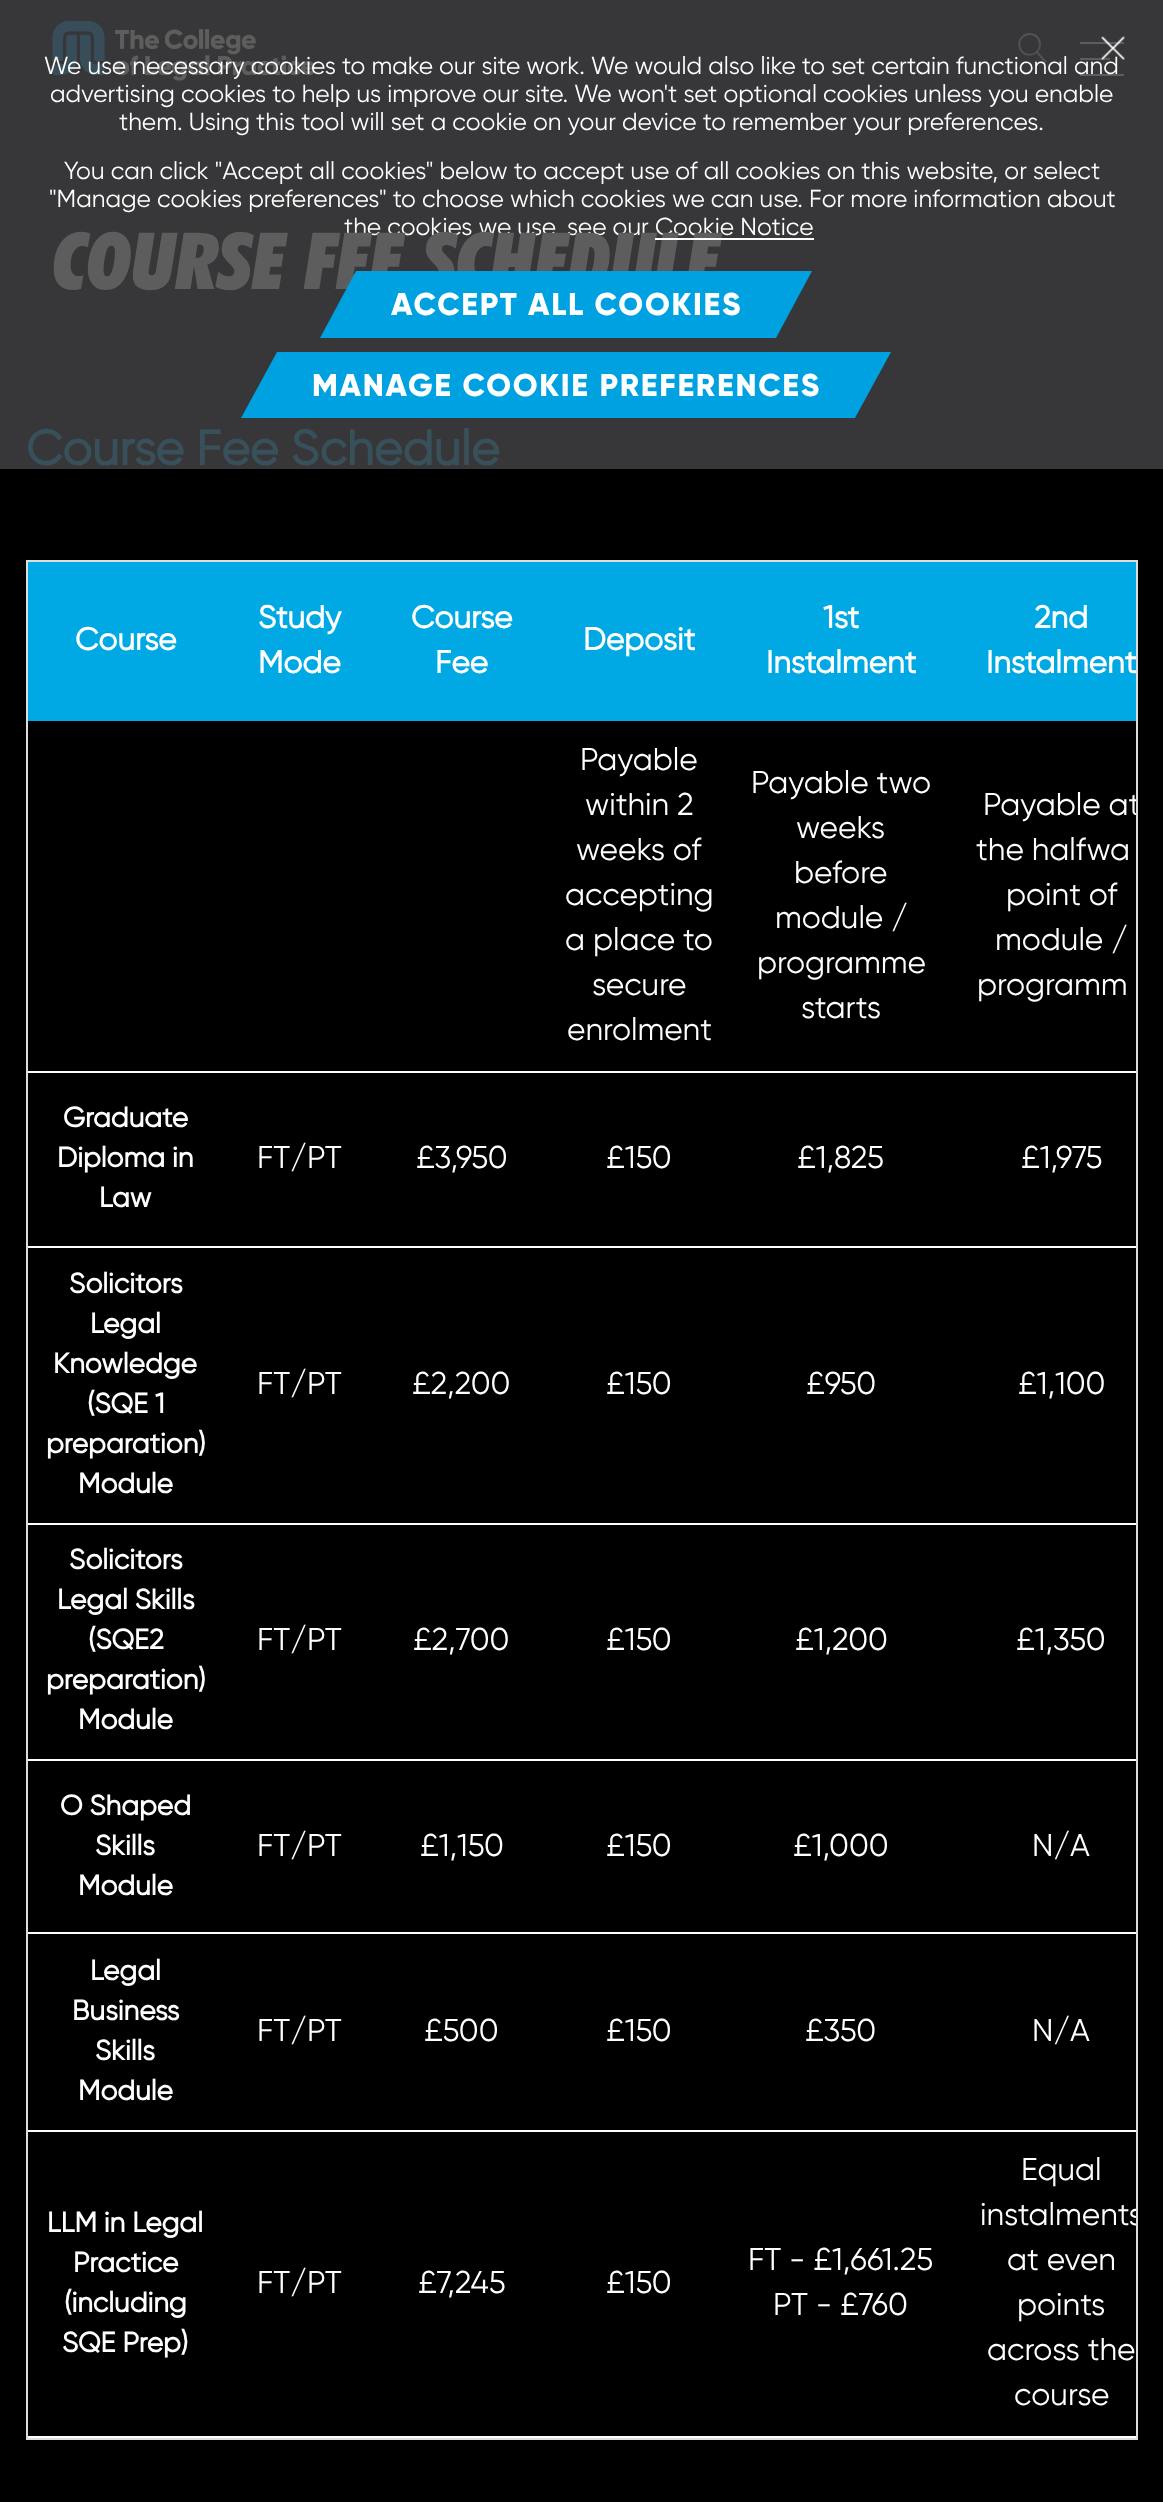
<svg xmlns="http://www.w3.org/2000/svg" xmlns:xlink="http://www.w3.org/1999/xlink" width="1163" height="2502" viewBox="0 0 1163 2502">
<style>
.cls-1{font:24.5px gilroy;fill:#ffffff}
.cls-2{font:800 31.5px Gilroy;letter-spacing:1.75px;fill:#ffffff}
.cls-3{font:italic 800 78.75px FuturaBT;fill:#5e5d5e}
.cls-4{font:bold 49px gilroy;fill:#37505a}
.cls-5{font:bold 31.5px gilroy;fill:#ffffff}
.cls-6{font:31.5px gilroy;fill:#ffffff}
.cls-7{font:bold 28px gilroy;fill:#ffffff}
</style>
<defs>
<clipPath id="clip1"><rect x="28" y="562" width="1108" height="1876"/></clipPath>
</defs>
<rect width="100%" height="100%" fill="#000000"/>
<rect fill="#373638" x="0" y="0" width="1163" height="469"/>
<image xlink:href="image0.png" x="52" y="21" width="263" height="60"/>
<rect fill="#5e5d5e" x="1080" y="58" width="30" height="2"/>
<rect fill="#5e5d5e" x="1080" y="42" width="44" height="2"/>
<rect fill="#5e5d5e" x="1080" y="74" width="44" height="2"/>
<image xlink:href="image1.png" x="1018" y="33" width="30" height="31"/>
<path fill="#00a1e0" d="M277 352H891L855 418H241Z"/>
<rect fill="none" stroke="#dddddd" stroke-width="2" x="27" y="561" width="1110" height="1878"/>
<rect fill="#00a9e3" x="28" y="562" width="1108" height="159"/>
<rect fill="#ffffff" x="28" y="1071" width="1108" height="2"/>
<rect fill="#ffffff" x="28" y="1246" width="1108" height="2"/>
<rect fill="#ffffff" x="28" y="1523" width="1108" height="2"/>
<rect fill="#ffffff" x="28" y="1759" width="1108" height="2"/>
<rect fill="#ffffff" x="28" y="1932" width="1108" height="2"/>
<rect fill="#ffffff" x="28" y="2130" width="1108" height="2"/>
<rect fill="#ffffff" x="28" y="2436" width="1108" height="2"/>
<text class="cls-1" x="44" y="74">We use necessary cookies to make our site work. We would also like to set certain functional and</text>
<image xlink:href="image2.png" x="1101" y="36" width="24" height="24"/>
<text class="cls-1" x="50" y="102">advertising cookies to help us improve our site. We won't set optional cookies unless you enable</text>
<text class="cls-1" x="119" y="130">them. Using this tool will set a cookie on your device to remember your preferences.</text>
<text class="cls-1" x="64" y="179">You can click "Accept all cookies" below to accept use of all cookies on this website, or select</text>
<text class="cls-1" x="49" y="207">"Manage cookies preferences" to choose which cookies we can use. For more information about</text>
<text class="cls-1" x="344" y="235">the cookies we use, see our Cookie Notice</text>
<text class="cls-2" x="312" y="396">MANAGE COOKIE PREFERENCES</text>
<text class="cls-3" x="53" y="289">COURSE FEE SCHEDULE</text>
<path fill="#00a1e0" d="M356 271H812L776 338H320Z"/>
<text class="cls-2" x="391" y="315">ACCEPT ALL COOKIES</text>
<rect fill="#ffffff" x="655" y="238" width="159" height="2"/>
<text class="cls-4" x="26" y="465">Course Fee Schedule</text>
<text class="cls-5" x="75" y="650">Course</text>
<text class="cls-5"><tspan x="258" y="628">Study</tspan><tspan x="258" y="673">Mode</tspan></text>
<text class="cls-5" x="411" y="628">Course</text>
<text class="cls-5" x="435" y="673">Fee</text>
<text class="cls-5" x="583" y="650">Deposit</text>
<text class="cls-5" x="823" y="628">1st</text>
<text class="cls-5" x="766" y="673">Instalment</text>
<text class="cls-5" x="1034" y="628">2nd</text>
<text class="cls-5" x="986" y="673">Instalment</text>
<text class="cls-6" x="580" y="770">Payable</text>
<text class="cls-6" x="585" y="815">within 2</text>
<text class="cls-6" x="576" y="860">weeks of</text>
<text class="cls-6"><tspan x="565" y="905">accepting</tspan><tspan x="565" y="950">a place to</tspan></text>
<text class="cls-6" x="592" y="995">secure</text>
<text class="cls-6" x="567" y="1040">enrolment</text>
<text class="cls-6" x="751" y="793">Payable two</text>
<text class="cls-6" x="796" y="838">weeks</text>
<text class="cls-6" x="794" y="883">before</text>
<text class="cls-6" x="775" y="928">module /</text>
<text class="cls-6" x="757" y="973">programme</text>
<text class="cls-6" x="801" y="1018">starts</text>
<g clip-path="url(#clip1)">
<text class="cls-6" x="983" y="815">Payable at</text>
</g>
<text class="cls-6" x="976" y="860">the halfwa</text>
<text class="cls-6" x="1006" y="905">point of</text>
<text class="cls-6" x="995" y="950">module /</text>
<text class="cls-6" x="977" y="995">programm</text>
<text class="cls-7" x="63" y="1127">Graduate</text>
<text class="cls-7" x="57" y="1167">Diploma in</text>
<text class="cls-7" x="99" y="1207">Law</text>
<text class="cls-6" x="257" y="1168">FT/PT</text>
<text class="cls-6" x="416" y="1168">£3,950</text>
<text class="cls-6" x="606" y="1168">£150</text>
<text class="cls-6" x="797" y="1168">£1,825</text>
<text class="cls-6" x="1021" y="1168">£1,975</text>
<text class="cls-7" x="69" y="1293">Solicitors</text>
<text class="cls-7" x="90" y="1333">Legal</text>
<text class="cls-7" x="53" y="1373">Knowledge</text>
<text class="cls-7" x="87" y="1413">(SQE 1</text>
<text class="cls-7" x="46" y="1453">preparation)</text>
<text class="cls-7" x="78" y="1493">Module</text>
<text class="cls-6" x="257" y="1394">FT/PT</text>
<text class="cls-6" x="412" y="1394">£2,200</text>
<text class="cls-6" x="606" y="1394">£150</text>
<text class="cls-6" x="806" y="1394">£950</text>
<text class="cls-6" x="1018" y="1394">£1,100</text>
<text class="cls-7" x="69" y="1569">Solicitors</text>
<text class="cls-7" x="57" y="1609">Legal Skills</text>
<text class="cls-7" x="88" y="1649">(SQE2</text>
<text class="cls-7" x="46" y="1689">preparation)</text>
<text class="cls-7" x="78" y="1729">Module</text>
<text class="cls-6" x="257" y="1650">FT/PT</text>
<text class="cls-6" x="413" y="1650">£2,700</text>
<text class="cls-6" x="606" y="1650">£150</text>
<text class="cls-6" x="795" y="1650">£1,200</text>
<text class="cls-6" x="1016" y="1650">£1,350</text>
<text class="cls-7" x="60" y="1815">O Shaped</text>
<text class="cls-7" x="95" y="1855">Skills</text>
<text class="cls-7" x="78" y="1895">Module</text>
<text class="cls-6" x="257" y="1856">FT/PT</text>
<text class="cls-6" x="420" y="1856">£1,150</text>
<text class="cls-6" x="606" y="1856">£150</text>
<text class="cls-6" x="793" y="1856">£1,000</text>
<text class="cls-6" x="1032" y="1856">N/A</text>
<text class="cls-7" x="90" y="1980">Legal</text>
<text class="cls-7" x="72" y="2020">Business</text>
<text class="cls-7" x="95" y="2060">Skills</text>
<text class="cls-7" x="78" y="2100">Module</text>
<text class="cls-6" x="257" y="2041">FT/PT</text>
<text class="cls-6" x="424" y="2041">£500</text>
<text class="cls-6" x="606" y="2041">£150</text>
<text class="cls-6" x="805" y="2041">£350</text>
<text class="cls-6" x="1032" y="2041">N/A</text>
<text class="cls-7" x="47" y="2232">LLM in Legal</text>
<text class="cls-7" x="73" y="2272">Practice</text>
<text class="cls-7" x="64" y="2312">(including</text>
<text class="cls-7" x="62" y="2352">SQE Prep)</text>
<text class="cls-6" x="257" y="2293">FT/PT</text>
<text class="cls-6" x="418" y="2293">£7,245</text>
<text class="cls-6" x="606" y="2293">£150</text>
<text class="cls-6" x="748" y="2270">FT - £1,661.25</text>
<text class="cls-6" x="773" y="2315">PT - £760</text>
<text class="cls-6" x="1021" y="2180">Equal</text>
<g clip-path="url(#clip1)">
<text class="cls-6" x="980" y="2225">instalments</text>
</g>
<text class="cls-6" x="1007" y="2270">at even</text>
<text class="cls-6" x="1017" y="2315">points</text>
<text class="cls-6" x="987" y="2360">across the</text>
<text class="cls-6" x="1014" y="2405">course</text>
</svg>
